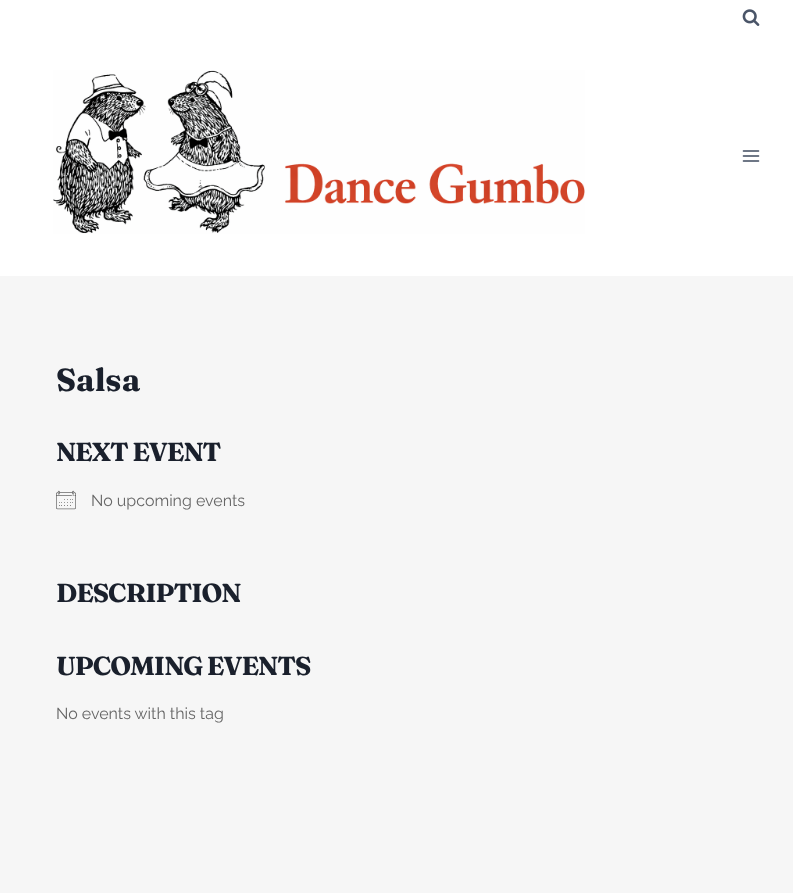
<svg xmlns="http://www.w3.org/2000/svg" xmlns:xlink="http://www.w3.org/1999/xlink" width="793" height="893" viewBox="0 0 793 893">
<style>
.cls-1{font:bold 32px Fraunces;fill:#1a202c}
.cls-2{font:bold 26px Fraunces;letter-spacing:-1px;fill:#1a202c}
.cls-3{font:16px Raleway;fill:#666666}
</style>
<rect width="100%" height="100%" fill="#f6f6f6"/>
<rect fill="#ffffff" x="0" y="0" width="793" height="276"/>
<image xlink:href="image0.png" x="742" y="9" width="18" height="17"/>
<image xlink:href="image1.png" x="53" y="70" width="532" height="164"/>
<image xlink:href="image2.png" x="742" y="150" width="18" height="12"/>
<image xlink:href="image3.png" x="56" y="490" width="20" height="20"/>
<text class="cls-1" x="56" y="391">Salsa</text>
<text class="cls-2" x="56" y="461">NEXT EVENT</text>
<text class="cls-3" x="91" y="506">No upcoming events</text>
<text class="cls-2" x="56" y="602">DESCRIPTION</text>
<text class="cls-2" x="56" y="675">UPCOMING EVENTS</text>
<text class="cls-3" x="56" y="719">No events with this tag</text>
</svg>
